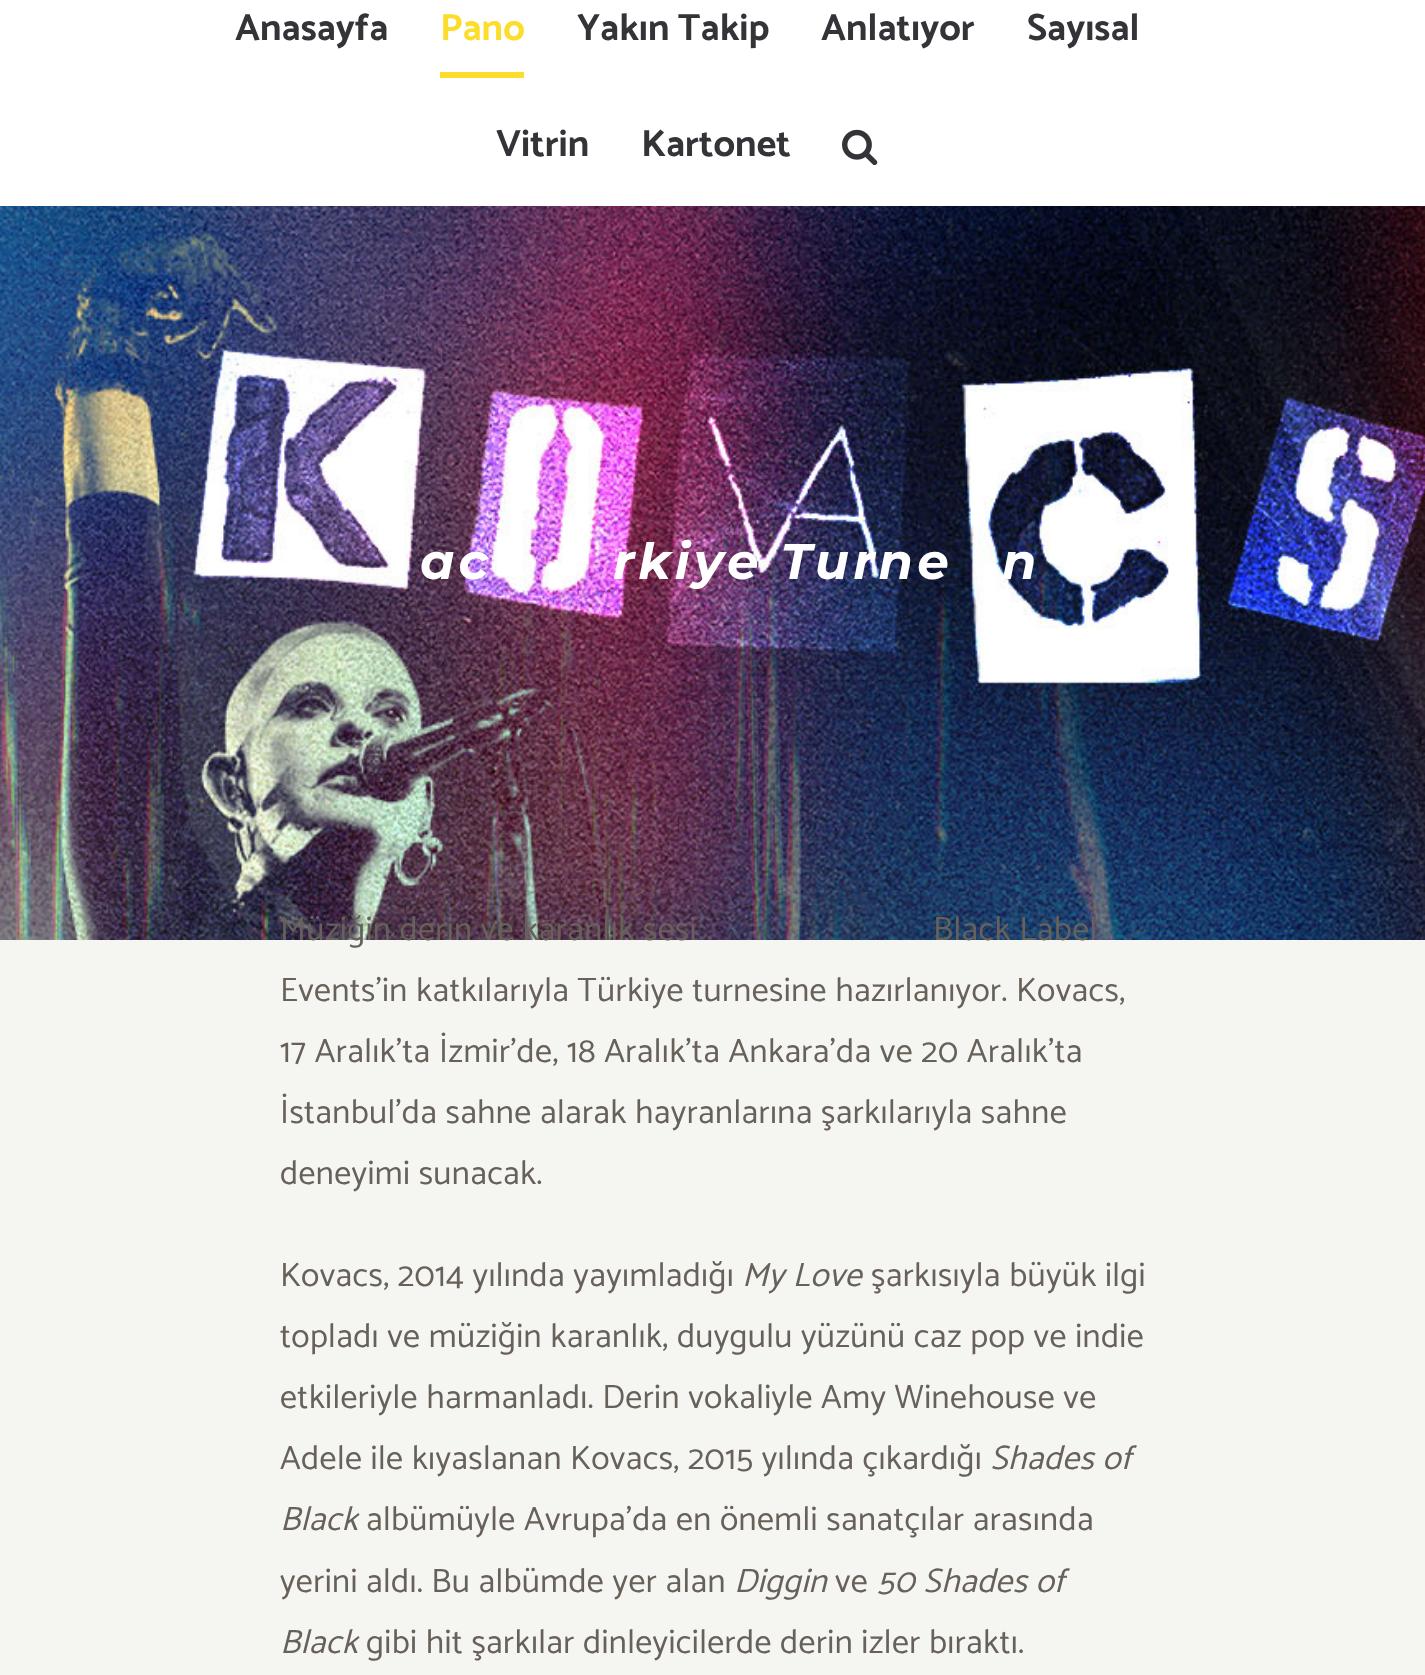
<svg xmlns="http://www.w3.org/2000/svg" xmlns:xlink="http://www.w3.org/1999/xlink" width="1425" height="1675" viewBox="0 0 1425 1675">
<style>
.cls-1{font:bold 38px Catamaran;fill:#333338}
.cls-2{font:bold 38px Catamaran;fill:#fcdd2b}
.cls-3{font:italic bold 50px Montserrat;letter-spacing:4px;fill:#ffffff}
.cls-4{font:34px Catamaran;letter-spacing:0.4px;fill:#67615a}
.cls-5{font:italic 34px Catamaran;letter-spacing:0.4px;fill:#67615a}
</style>
<rect width="100%" height="100%" fill="#f5f5f1"/>
<image xlink:href="image1.png" x="0" y="206" width="1425" height="734"/>
<rect fill="#000000" fill-opacity="0.14" filter="blur(50px)" x="4" y="-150" width="1418" height="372"/>
<rect fill="#ffffff" x="0" y="0" width="1425" height="206"/>
<rect fill="#fcdd2b" x="440" y="72" width="84" height="6"/>
<image xlink:href="image0.png" x="842" y="129" width="36" height="37"/>
<text class="cls-1" x="235" y="40">Anasayfa</text>
<text class="cls-2" x="440" y="40">Pano</text>
<text class="cls-1" x="577" y="40">Yakın Takip</text>
<text class="cls-1" x="821" y="40">Anlatıyor</text>
<text class="cls-1" x="1027" y="40">Sayısal</text>
<text class="cls-1" x="496" y="156">Vitrin</text>
<text class="cls-1" x="641" y="156">Kartonet</text>
<text class="cls-3" x="420" y="579">ac</text>
<text class="cls-3" x="613" y="579">rkiye Turne</text>
<text class="cls-3" x="1002" y="579">n</text>
<text class="cls-4" x="280" y="940">Müziğin derin ve karanlık sesi</text>
<text class="cls-4" x="933" y="940">Black Label</text>
<text class="cls-4"><tspan x="280" y="1001">Events’in katkılarıyla Türkiye turnesine hazırlanıyor. Kovacs,</tspan><tspan x="280" y="1062">17 Aralık’ta İzmir’de, 18 Aralık’ta Ankara’da ve 20 Aralık’ta</tspan><tspan x="280" y="1123">İstanbul’da sahne alarak hayranlarına şarkılarıyla sahne</tspan><tspan x="280" y="1184">deneyimi sunacak.</tspan></text>
<text class="cls-4" x="280" y="1286">Kovacs, 2014 yılında yayımladığı</text>
<text class="cls-5" x="742" y="1286">My Love</text>
<text class="cls-4" x="871" y="1286">şarkısıyla büyük ilgi</text>
<text class="cls-4"><tspan x="280" y="1347">topladı ve müziğin karanlık, duygulu yüzünü caz pop ve indie</tspan><tspan x="280" y="1408">etkileriyle harmanladı. Derin vokaliyle Amy Winehouse ve</tspan><tspan x="280" y="1469">Adele ile kıyaslanan Kovacs, 2015 yılında çıkardığı</tspan></text>
<text class="cls-5" x="990" y="1469">Shades of</text>
<text class="cls-5" x="280" y="1530">Black</text>
<text class="cls-4" x="366" y="1530">albümüyle Avrupa’da en önemli sanatçılar arasında</text>
<text class="cls-4" x="280" y="1592">yerini aldı. Bu albümde yer alan</text>
<text class="cls-5" x="734" y="1592">Diggin</text>
<text class="cls-4" x="835" y="1592">ve</text>
<text class="cls-5" x="877" y="1592">50 Shades of</text>
<text class="cls-5" x="280" y="1653">Black</text>
<text class="cls-4" x="366" y="1653">gibi hit şarkılar dinleyicilerde derin izler bıraktı.</text>
</svg>
